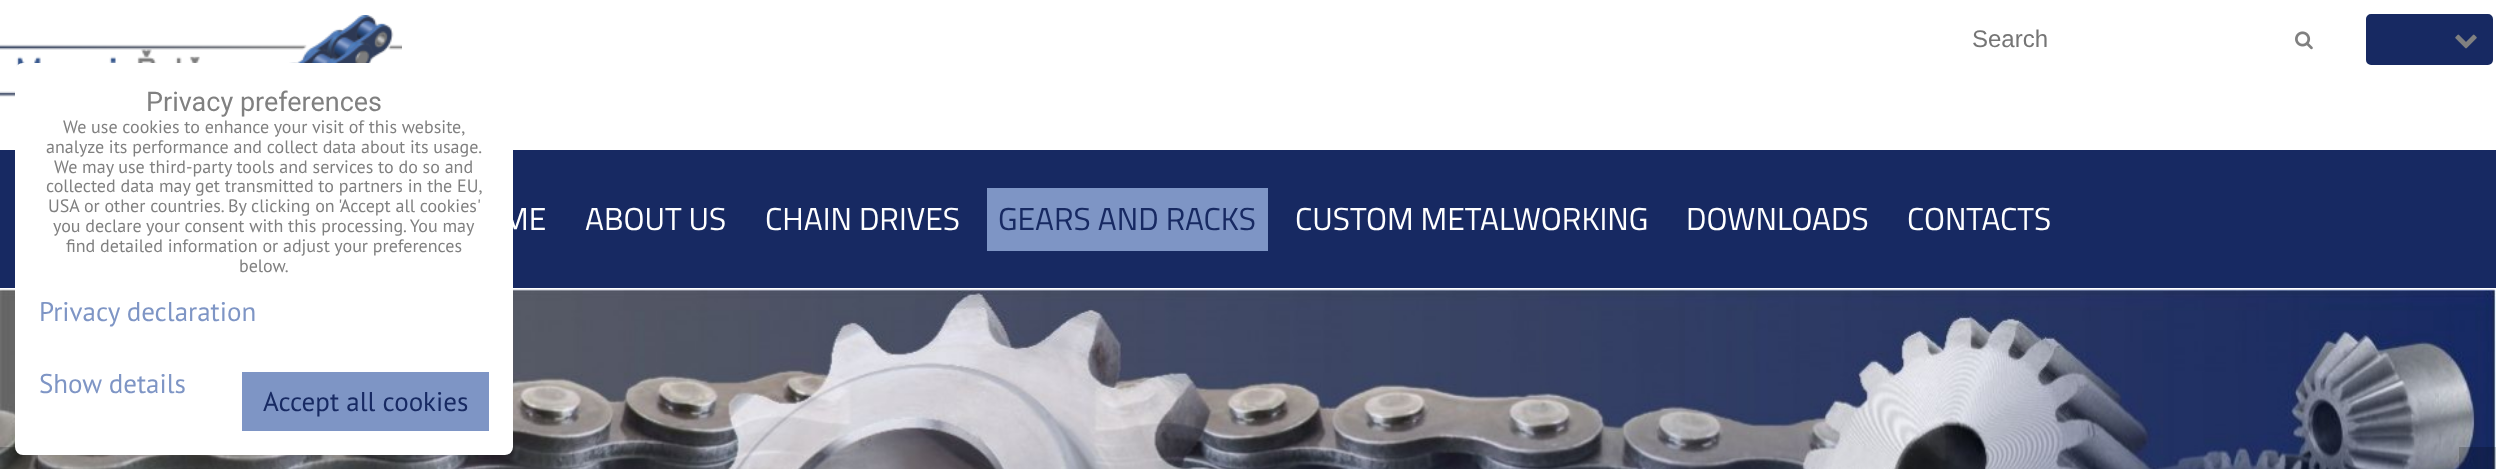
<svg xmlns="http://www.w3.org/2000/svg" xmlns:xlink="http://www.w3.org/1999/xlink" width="2496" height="469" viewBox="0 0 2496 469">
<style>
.cls-1{font:27px Roboto;fill:#808080}
.cls-2{font:18px PT Sans;fill:#808080}
.cls-3{font:27px PT Sans;fill:#7e95c5}
.cls-4{font:27px PT Sans;fill:#172962}
.cls-5{font:24px Liberation Sans;fill:#757575}
.cls-6{font:31.75px Titillium Web;fill:#ffffff}
.cls-7{font:31.75px Titillium Web;fill:#172962}
</style>
<rect width="100%" height="100%" fill="#ffffff"/>
<image xlink:href="image0.png" x="0" y="15" width="402" height="82"/>
<rect fill="#172962" x="0" y="150" width="2496" height="138"/>
<image xlink:href="image3.png" x="0" y="289" width="2496" height="180"/>
<rect fill="#000000" fill-opacity="0.2" x="0" y="447" width="38" height="22"/>
<rect fill="#ffffff" stroke="#ffffff" stroke-width="2" x="16" y="64" width="496" height="390" rx="7"/>
<rect fill="#7e95c5" x="242" y="372" width="247" height="59"/>
<image xlink:href="image1.png" x="2295" y="31" width="18" height="19"/>
<rect fill="#172962" stroke="#ffffff" stroke-width="3" x="2364.5" y="12.5" width="130" height="54" rx="6.5"/>
<image xlink:href="image2.png" x="2455" y="34" width="22" height="15"/>
<rect fill="#7e95c5" x="987" y="188" width="281" height="63"/>
<rect fill="#000000" fill-opacity="0.2" x="2459" y="447" width="37" height="22"/>
<text class="cls-1" x="146" y="111">Privacy preferences</text>
<text class="cls-2" x="63" y="133">We use cookies to enhance your visit of this website,</text>
<text class="cls-2" x="46" y="153">analyze its performance and collect data about its usage.</text>
<text class="cls-2" x="54" y="173">We may use third-party tools and services to do so and</text>
<text class="cls-2" x="46" y="192">collected data may get transmitted to partners in the EU,</text>
<text class="cls-2" x="48" y="212">USA or other countries. By clicking on 'Accept all cookies'</text>
<text class="cls-2" x="53" y="232">you declare your consent with this processing. You may</text>
<text class="cls-2" x="66" y="252">find detailed information or adjust your preferences</text>
<text class="cls-2" x="239" y="272">below.</text>
<text class="cls-3" x="39" y="321">Privacy declaration</text>
<text class="cls-3" x="39" y="393">Show details</text>
<text class="cls-4" x="263" y="411">Accept all cookies</text>
<text class="cls-5" x="1972" y="47">Search</text>
<text class="cls-6" x="502" y="230">ME</text>
<text class="cls-6" x="585" y="230">ABOUT US</text>
<text class="cls-6" x="765" y="230">CHAIN DRIVES</text>
<text class="cls-7" x="998" y="230">GEARS AND RACKS</text>
<text class="cls-6" x="1295" y="230">CUSTOM METALWORKING</text>
<text class="cls-6" x="1686" y="230">DOWNLOADS</text>
<text class="cls-6" x="1907" y="230">CONTACTS</text>
</svg>
